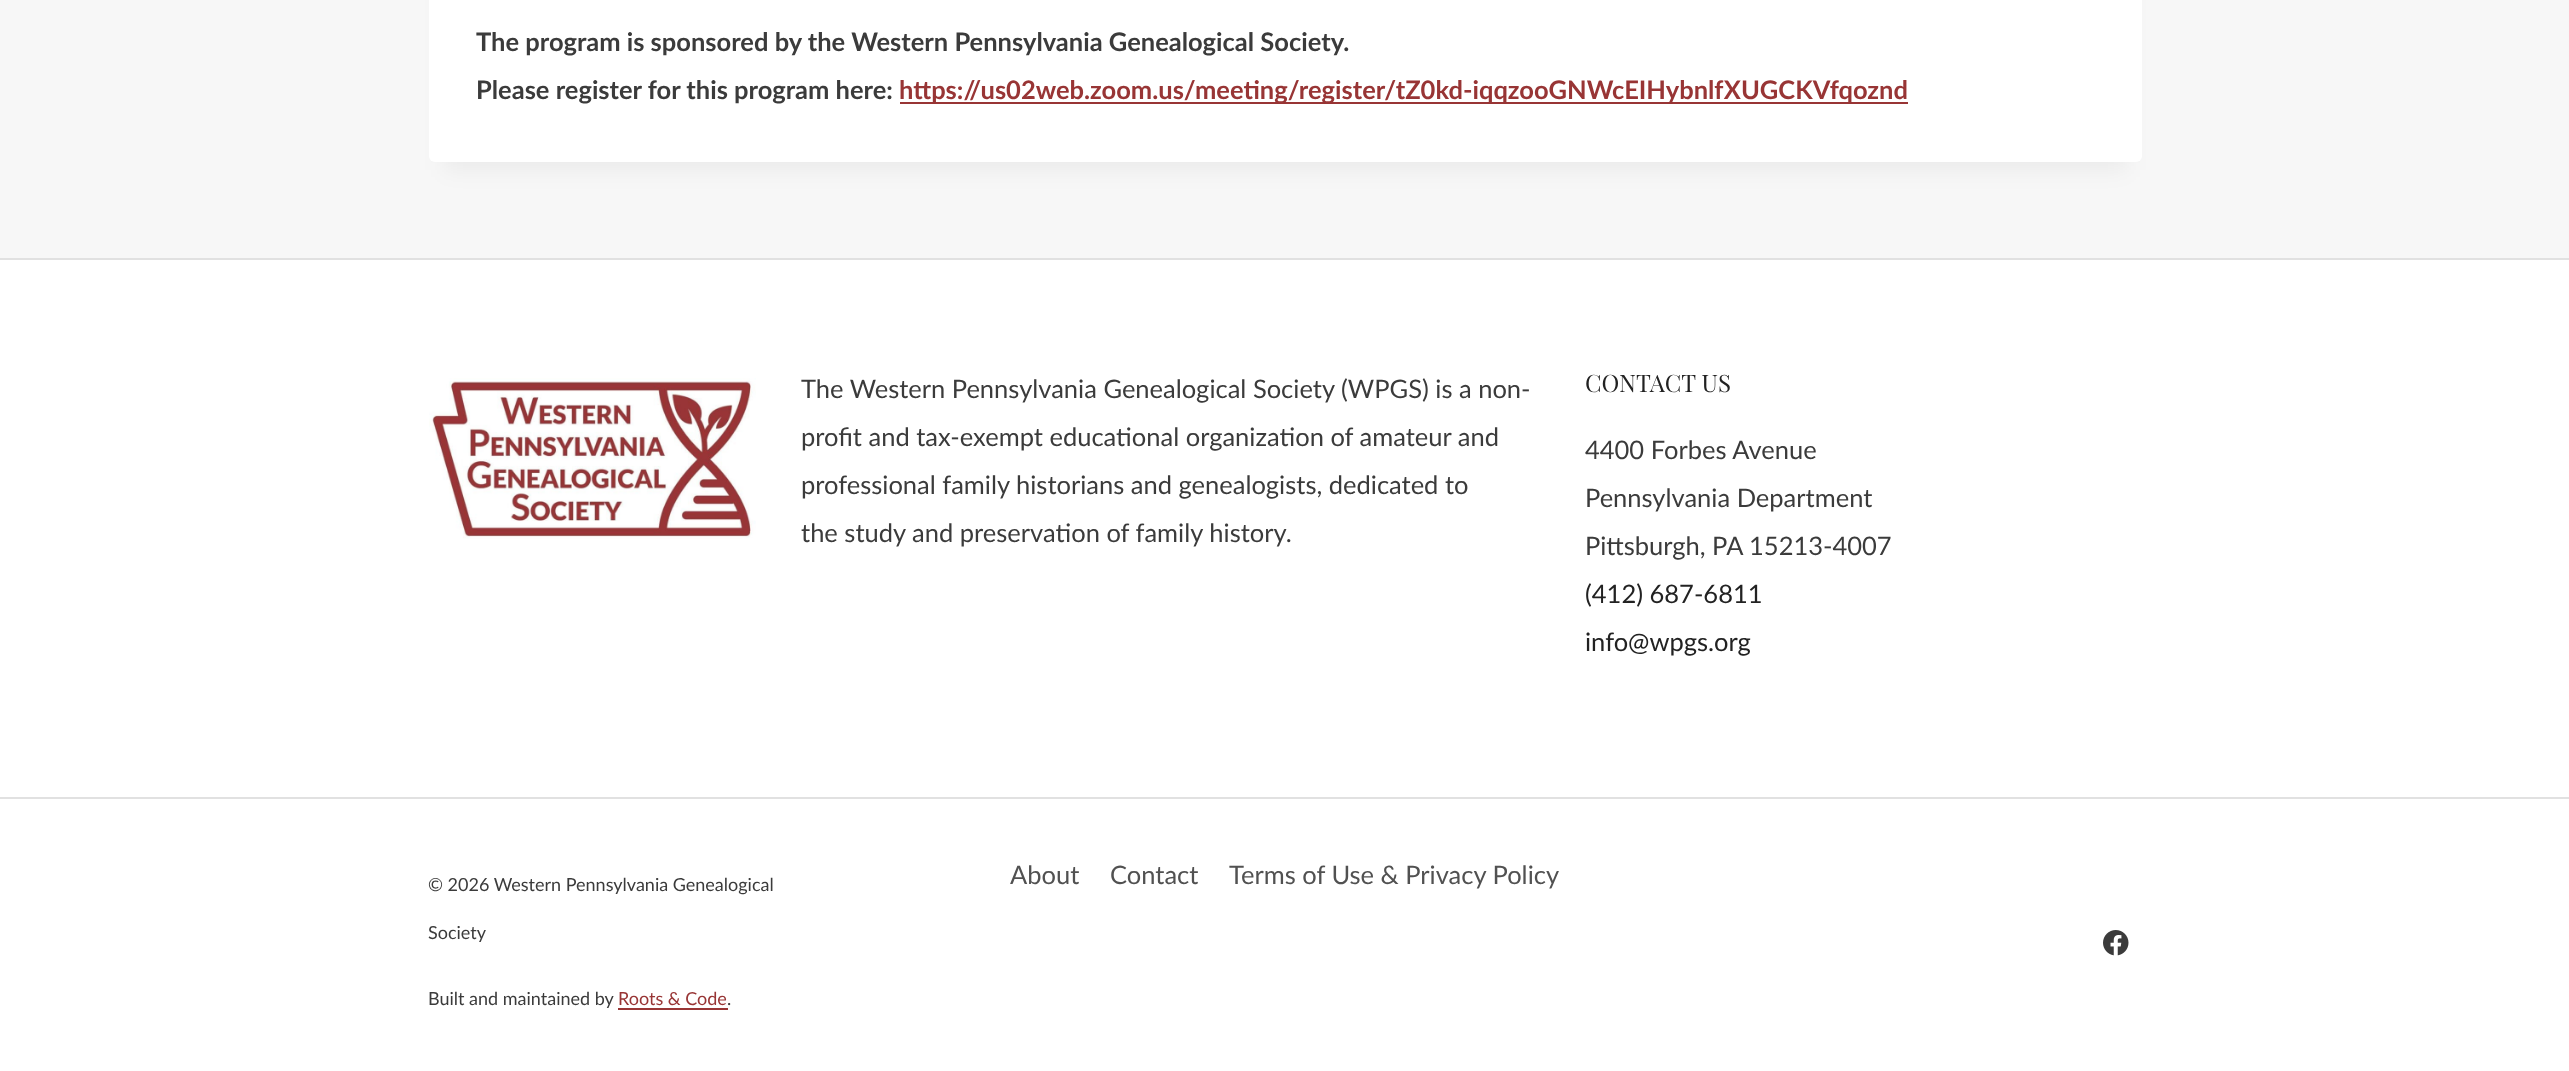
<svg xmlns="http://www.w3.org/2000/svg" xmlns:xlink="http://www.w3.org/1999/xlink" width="2569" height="1071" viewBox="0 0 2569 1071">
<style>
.cls-1{font:bold 25.5px Lato;fill:#3b3b3b}
.cls-2{font:bold 25.5px Lato;fill:#983535}
.cls-3{font:25.5px Lato;fill:#3b3b3b}
.cls-4{font:24px Playfair Display;fill:#222222}
.cls-5{font:25.5px Lato;fill:#222222}
.cls-6{font:18px Lato;fill:#3b3b3b}
.cls-7{font:18px Lato;fill:#983535}
.cls-8{font:25.5px Lato;fill:#515151}
</style>
<rect width="100%" height="100%" fill="#f7f7f7"/>
<rect fill="#000000" fill-opacity="0.05" filter="blur(11px)" x="444" y="-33" width="1683" height="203"/>
<rect fill="#ffffff" x="429" y="-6" width="1713" height="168" rx="6"/>
<rect fill="#983535" x="900" y="102" width="1008" height="2"/>
<rect fill="#ffffff" x="0" y="260" width="2569" height="811"/>
<rect fill="#e1e1e1" x="0" y="258" width="2569" height="2"/>
<image xlink:href="image0.png" x="429" y="378" width="327" height="161"/>
<rect fill="#e1e1e1" x="0" y="797" width="2569" height="2"/>
<rect fill="#983535" x="618" y="1008" width="110" height="2"/>
<image xlink:href="image1.png" x="2103" y="930" width="26" height="26"/>
<text class="cls-1"><tspan x="476" y="51">The program is sponsored by the Western Pennsylvania Genealogical Society.</tspan><tspan x="476" y="99">Please register for this program here:</tspan></text>
<text class="cls-2" x="899" y="99">https://us02web.zoom.us/meeting/register/tZ0kd-iqqzooGNWcEIHybnlfXUGCKVfqoznd</text>
<text class="cls-3"><tspan x="801" y="398">The Western Pennsylvania Genealogical Society (WPGS) is a non-</tspan><tspan x="801" y="446">profit and tax-exempt educational organization of amateur and</tspan><tspan x="801" y="494">professional family historians and genealogists, dedicated to</tspan><tspan x="801" y="542">the study and preservation of family history.</tspan></text>
<text class="cls-4" x="1585" y="392">CONTACT US</text>
<text class="cls-3"><tspan x="1585" y="459">4400 Forbes Avenue</tspan><tspan x="1585" y="507">Pennsylvania Department</tspan><tspan x="1585" y="555">Pittsburgh, PA 15213-4007</tspan></text>
<text class="cls-5"><tspan x="1585" y="603">(412) 687-6811</tspan><tspan x="1585" y="651">info@wpgs.org</tspan></text>
<text class="cls-6" x="428" y="891">© 2026 Western Pennsylvania Genealogical</text>
<text class="cls-6" x="428" y="939">Society</text>
<text class="cls-6" x="428" y="1005">Built and maintained by</text>
<text class="cls-7" x="618" y="1005">Roots &amp; Code</text>
<text class="cls-6" x="727" y="1005">.</text>
<text class="cls-8" x="1010" y="884">About</text>
<text class="cls-8" x="1110" y="884">Contact</text>
<text class="cls-8" x="1229" y="884">Terms of Use &amp; Privacy Policy</text>
</svg>
